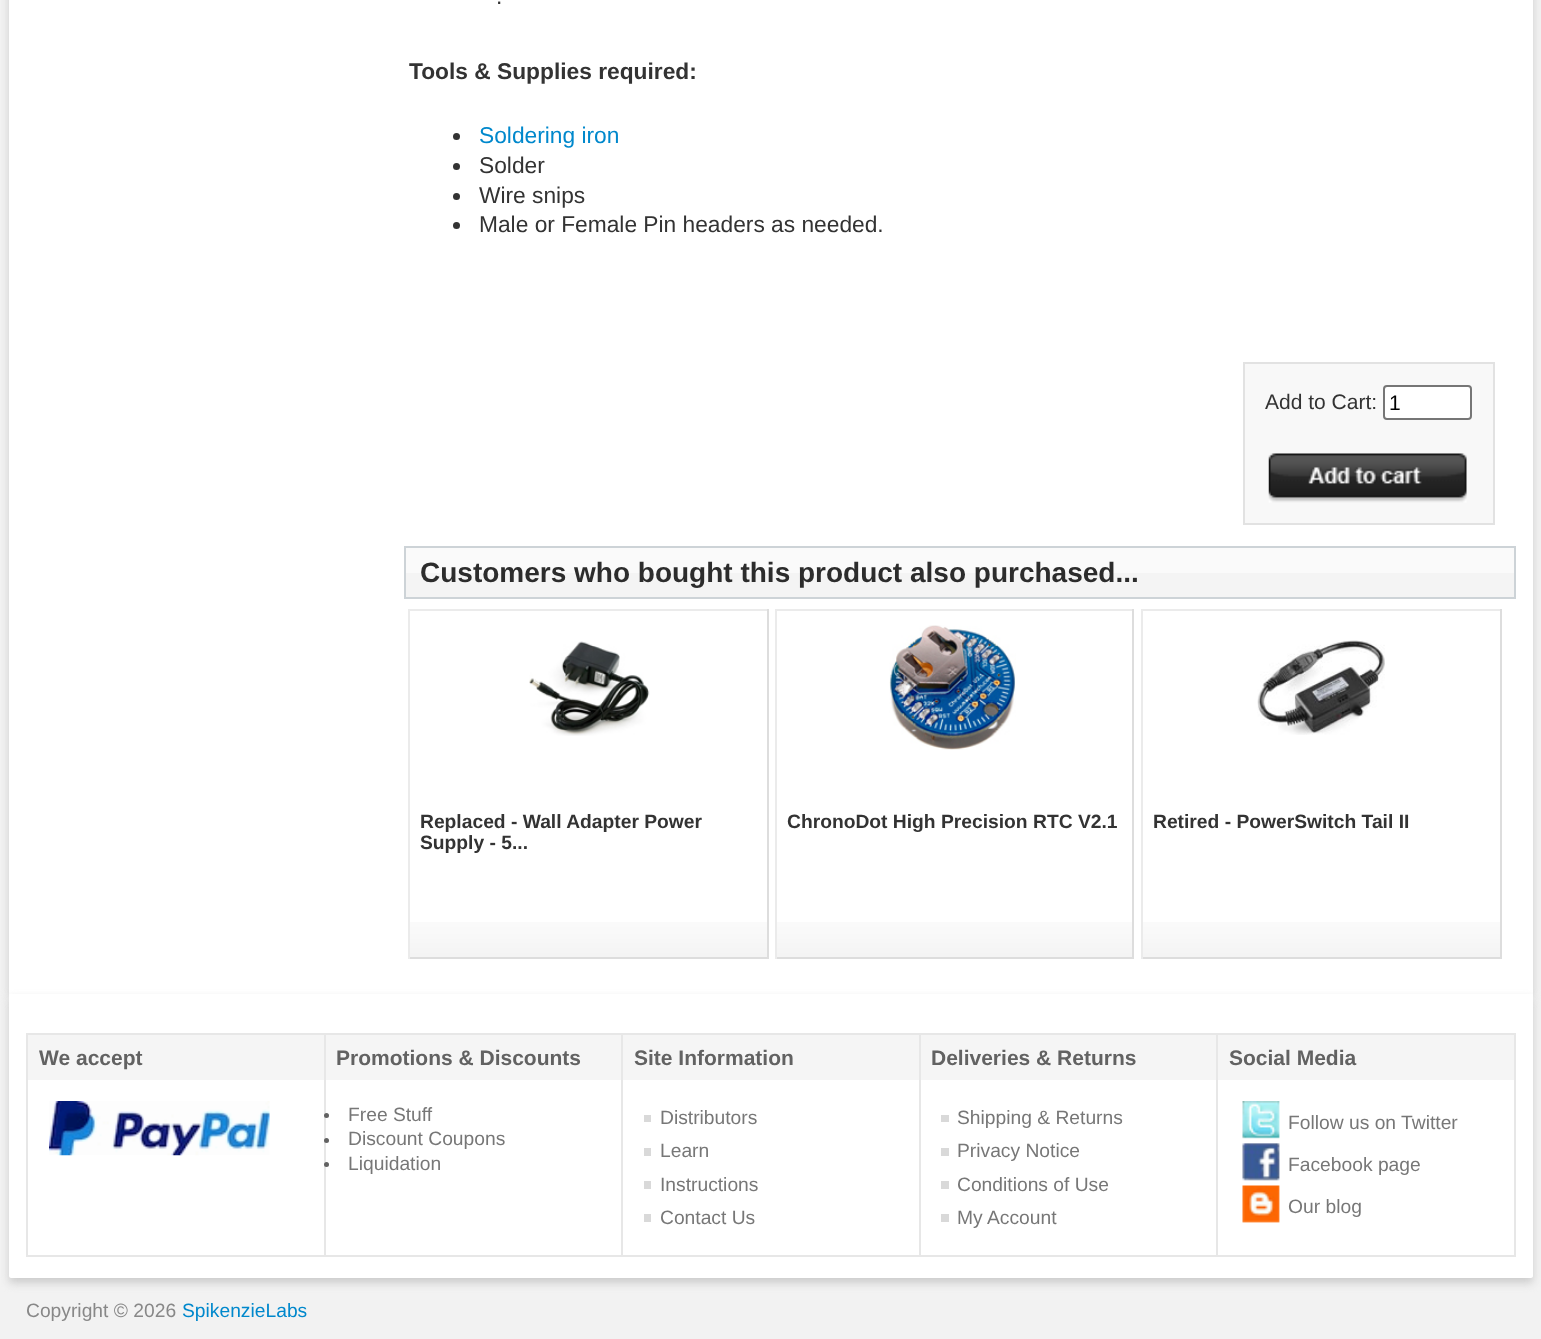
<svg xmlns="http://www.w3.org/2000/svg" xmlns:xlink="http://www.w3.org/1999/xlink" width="1541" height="1339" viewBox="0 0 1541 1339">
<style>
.cls-1{font:22.75px Liberation Sans;fill:#333333}
.cls-2{font:bold 22.75px Liberation Sans;fill:#333333}
.cls-3{font:22.75px Liberation Sans;fill:#0088cc}
.cls-4{font:21px Liberation Sans;fill:#333333}
.cls-5{font:21px Liberation Sans;fill:#000000}
.cls-6{font:bold 28px Liberation Sans;fill:#2c2c2c}
.cls-7{font:bold 19.25px Liberation Sans;fill:#333333}
.cls-8{font:bold 21px Liberation Sans;fill:#626262}
.cls-9{font:19.25px Liberation Sans;fill:#777777}
.cls-10{font:19.25px Liberation Sans;fill:#888888}
.cls-11{font:19.25px Liberation Sans;fill:#0088cc}
</style>
<rect width="100%" height="100%" fill="#f2f2f2"/>
<rect fill="#cccccc" filter="blur(4.5px)" x="9" y="-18" width="1524" height="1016" rx="4"/>
<rect fill="#ffffff" x="9" y="0" width="1524" height="994"/>
<circle fill="#333333" cx="456.5" cy="136.5" r="3.5"/>
<circle fill="#333333" cx="456.5" cy="166.5" r="3.5"/>
<circle fill="#333333" cx="456.5" cy="196.5" r="3.5"/>
<circle fill="#333333" cx="456.5" cy="225.5" r="3.5"/>
<rect fill="#f8f8f8" stroke="#e2e2e2" stroke-width="2" x="1244" y="363" width="250" height="161"/>
<rect fill="#ffffff" stroke="#767676" stroke-width="2" x="1384" y="386" width="87" height="33" rx="3"/>
<image xlink:href="image0.png" x="1268" y="453" width="199" height="50"/>
<rect fill="#fafafa" x="406" y="548" width="1108" height="25"/>
<rect fill="#f4f4f4" x="406" y="573" width="1108" height="24"/>
<rect fill="none" stroke="#cdd3d7" stroke-width="2" x="405" y="547" width="1110" height="51"/>
<image xlink:href="image1.png" x="410" y="922" width="357" height="35"/>
<rect fill="#ebebeb" x="408" y="609" width="360" height="2"/>
<rect fill="#dddddd" x="767" y="609" width="2" height="350"/>
<rect fill="#dddddd" x="408" y="957" width="360" height="2"/>
<rect fill="#ebebeb" x="408" y="609" width="2" height="350"/>
<image xlink:href="image2.png" x="529" y="641" width="121" height="95"/>
<image xlink:href="image3.png" x="777" y="922" width="355" height="35"/>
<rect fill="#ebebeb" x="775" y="609" width="359" height="2"/>
<rect fill="#dddddd" x="1132" y="609" width="2" height="350"/>
<rect fill="#dddddd" x="775" y="957" width="359" height="2"/>
<rect fill="#ebebeb" x="775" y="609" width="2" height="350"/>
<image xlink:href="image4.png" x="889" y="625" width="127" height="125"/>
<image xlink:href="image1.png" x="1143" y="922" width="357" height="35"/>
<rect fill="#ebebeb" x="1141" y="609" width="361" height="2"/>
<rect fill="#dddddd" x="1500" y="609" width="2" height="350"/>
<rect fill="#dddddd" x="1141" y="957" width="361" height="2"/>
<rect fill="#ebebeb" x="1141" y="609" width="2" height="350"/>
<image xlink:href="image5.png" x="1257" y="640" width="128" height="95"/>
<rect fill="#cccccc" filter="blur(4.5px)" x="9" y="999" width="1524" height="284" rx="2"/>
<path fill="#ffffff" d="M9 994H1533V1276C1533 1277 1532 1278 1531 1278H11C10 1278 9 1277 9 1276Z"/>
<rect fill="#e7e7e7" x="26" y="1033" width="1490" height="2"/>
<rect fill="#e7e7e7" x="1514" y="1033" width="2" height="224"/>
<rect fill="#e7e7e7" x="26" y="1255" width="1490" height="2"/>
<rect fill="#e7e7e7" x="26" y="1033" width="2" height="224"/>
<rect fill="#f5f5f5" x="28" y="1035" width="296" height="45"/>
<rect fill="#f5f5f5" x="326" y="1035" width="295" height="45"/>
<rect fill="#f5f5f5" x="623" y="1035" width="296" height="45"/>
<rect fill="#f5f5f5" x="921" y="1035" width="295" height="45"/>
<rect fill="#f5f5f5" x="1218" y="1035" width="296" height="45"/>
<image xlink:href="image6.png" x="49" y="1101" width="221" height="55"/>
<rect fill="#e7e7e7" x="324" y="1033" width="2" height="224"/>
<circle fill="#626262" cx="326.5" cy="1115.5" r="2.5"/>
<circle fill="#626262" cx="326.5" cy="1140.5" r="2.5"/>
<circle fill="#626262" cx="326.5" cy="1164.5" r="2.5"/>
<rect fill="#e7e7e7" x="621" y="1033" width="2" height="224"/>
<rect fill="#d9d9d9" x="644" y="1115" width="7" height="7"/>
<rect fill="#d9d9d9" x="644" y="1148" width="7" height="8"/>
<rect fill="#d9d9d9" x="644" y="1181" width="7" height="8"/>
<rect fill="#d9d9d9" x="644" y="1214" width="7" height="8"/>
<rect fill="#e7e7e7" x="919" y="1033" width="2" height="224"/>
<rect fill="#d9d9d9" x="941" y="1115" width="8" height="7"/>
<rect fill="#d9d9d9" x="941" y="1148" width="8" height="8"/>
<rect fill="#d9d9d9" x="941" y="1181" width="8" height="8"/>
<rect fill="#d9d9d9" x="941" y="1214" width="8" height="8"/>
<rect fill="#e7e7e7" x="1216" y="1033" width="2" height="224"/>
<image xlink:href="image7.png" x="1242" y="1101" width="38" height="38"/>
<image xlink:href="image8.png" x="1242" y="1143" width="38" height="38"/>
<image xlink:href="image9.png" x="1242" y="1185" width="38" height="38"/>
<text class="cls-1" x="496" y="4">.</text>
<text class="cls-2" x="409" y="79">Tools &amp; Supplies required:</text>
<text class="cls-3" x="479" y="143">Soldering iron</text>
<text class="cls-1"><tspan x="479" y="173">Solder</tspan><tspan x="479" y="203">Wire snips</tspan><tspan x="479" y="232">Male or Female Pin headers as needed.</tspan></text>
<text class="cls-4" x="1265" y="409">Add to Cart:</text>
<text class="cls-5" x="1389" y="410">1</text>
<text class="cls-6" x="420" y="582">Customers who bought this product also purchased...</text>
<text class="cls-7"><tspan x="420" y="828">Replaced - Wall Adapter Power</tspan><tspan x="420" y="849">Supply - 5...</tspan></text>
<text class="cls-7" x="787" y="828">ChronoDot High Precision RTC V2.1</text>
<text class="cls-7" x="1153" y="828">Retired - PowerSwitch Tail II</text>
<text class="cls-8" x="39" y="1065">We accept</text>
<text class="cls-8" x="336" y="1065">Promotions &amp; Discounts</text>
<text class="cls-8" x="634" y="1065">Site Information</text>
<text class="cls-8" x="931" y="1065">Deliveries &amp; Returns</text>
<text class="cls-8" x="1229" y="1065">Social Media</text>
<text class="cls-9"><tspan x="348" y="1121">Free Stuff</tspan><tspan x="348" y="1145">Discount Coupons</tspan><tspan x="348" y="1170">Liquidation</tspan></text>
<text class="cls-9"><tspan x="660" y="1124">Distributors</tspan><tspan x="660" y="1157">Learn</tspan><tspan x="660" y="1191">Instructions</tspan><tspan x="660" y="1224">Contact Us</tspan></text>
<text class="cls-9"><tspan x="957" y="1124">Shipping &amp; Returns</tspan><tspan x="957" y="1157">Privacy Notice</tspan><tspan x="957" y="1191">Conditions of Use</tspan><tspan x="957" y="1224">My Account</tspan></text>
<text class="cls-9" x="1288" y="1129">Follow us on Twitter</text>
<text class="cls-9" x="1288" y="1171">Facebook page</text>
<text class="cls-9" x="1288" y="1213">Our blog</text>
<text class="cls-10" x="26" y="1317">Copyright © 2026</text>
<text class="cls-11" x="182" y="1317">SpikenzieLabs</text>
</svg>
